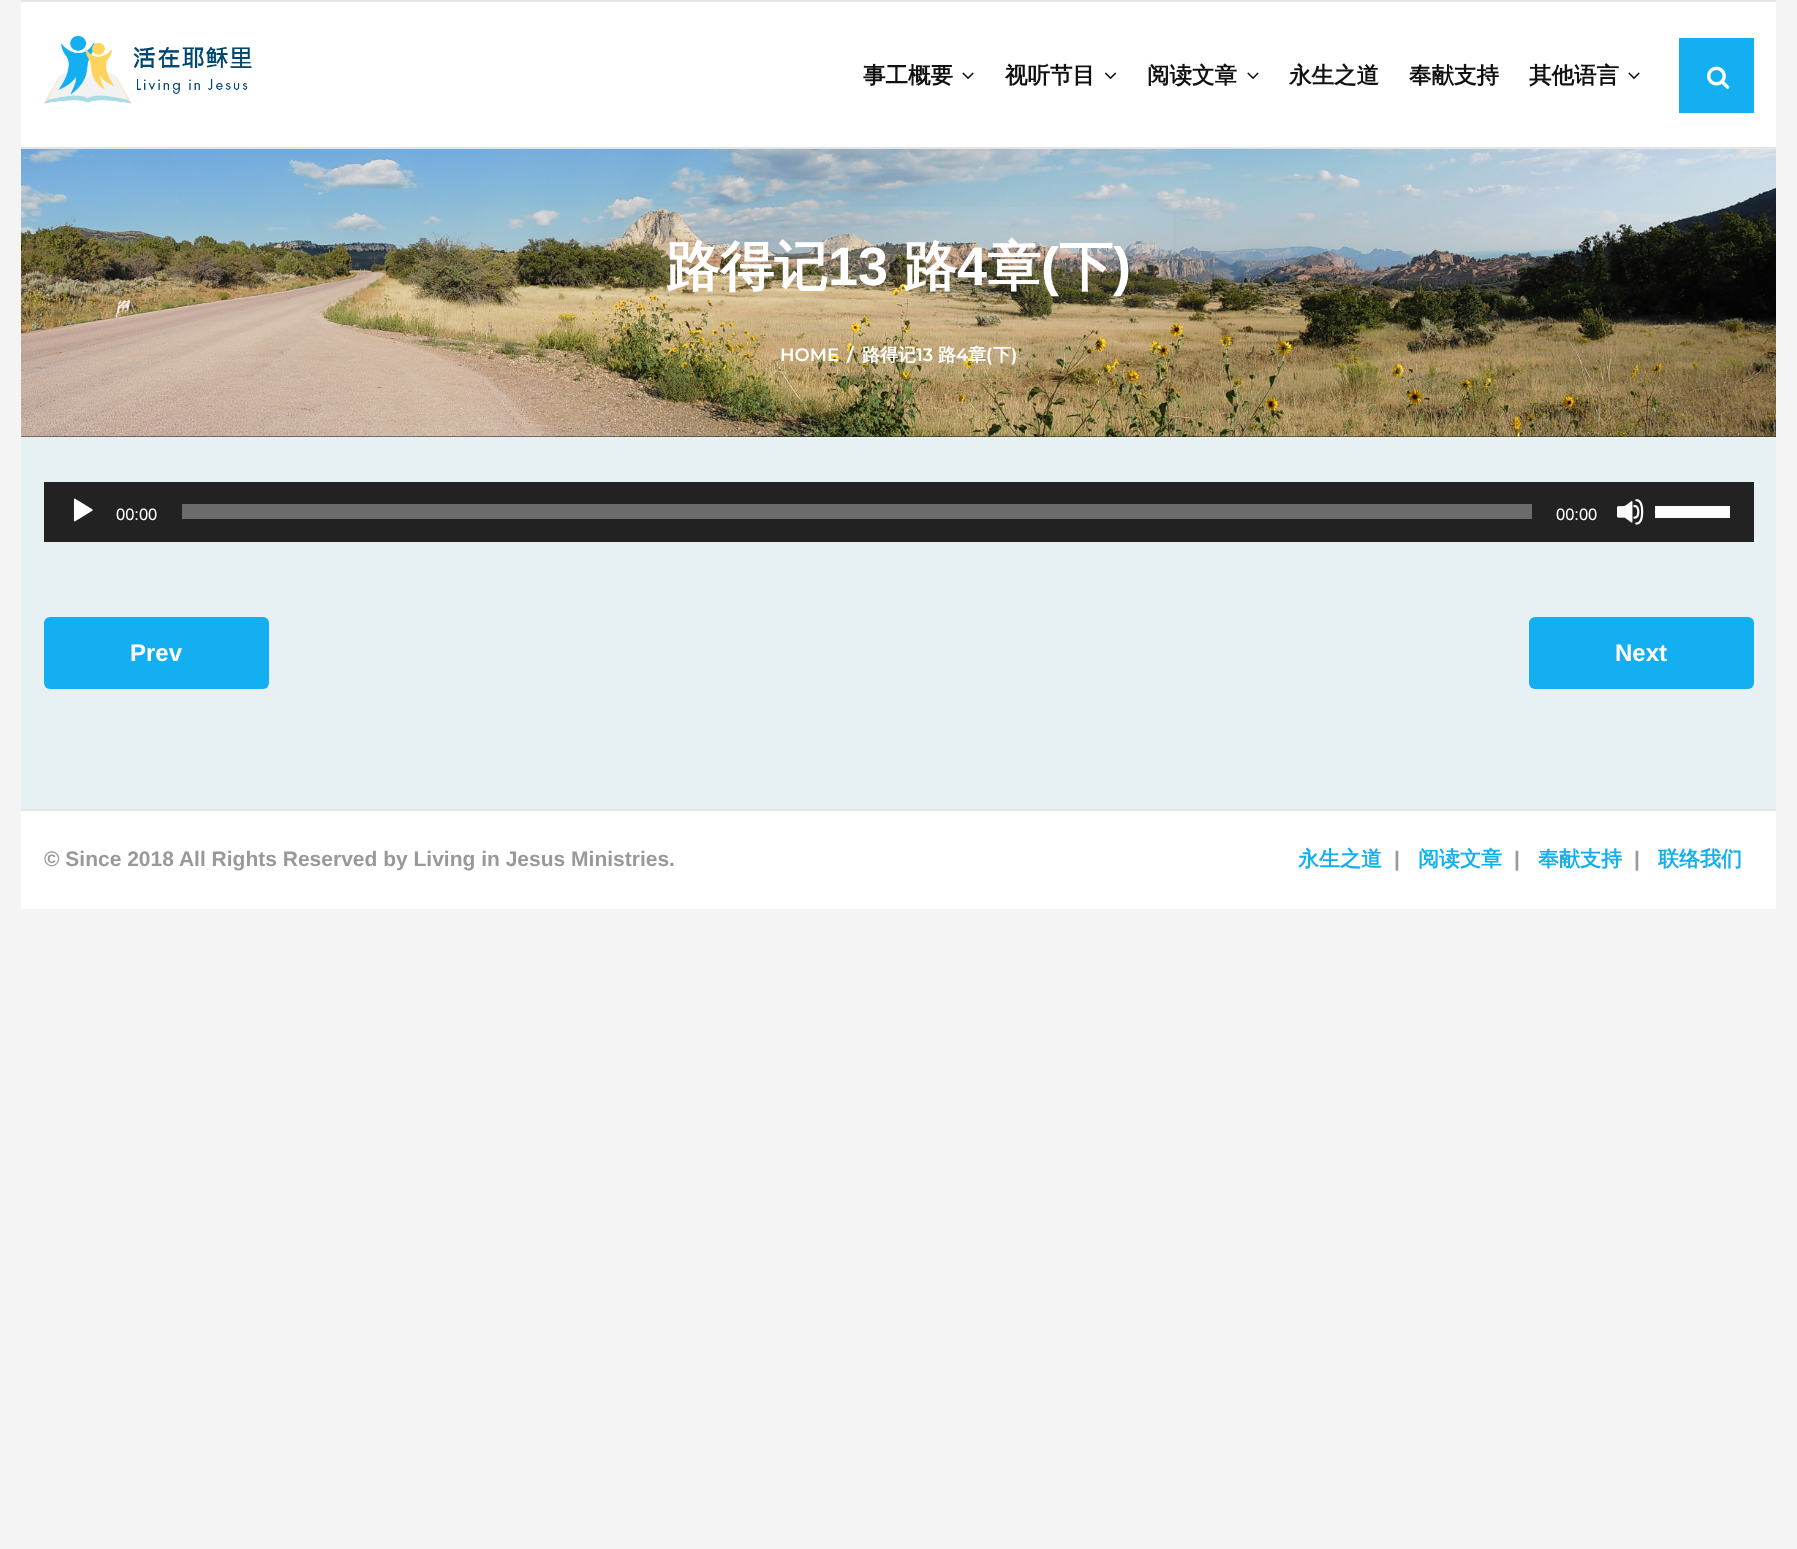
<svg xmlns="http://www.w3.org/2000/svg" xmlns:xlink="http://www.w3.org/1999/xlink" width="1797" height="1549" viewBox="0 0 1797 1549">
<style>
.cls-1{font:bold 22.5px WenQuanYi Zen Hei;fill:#111111}
.cls-2{font:bold 54px WenQuanYi Zen Hei;fill:#ffffff}
.cls-3{font:bold 54px Liberation Sans;fill:#ffffff}
.cls-4{font:600 18px Montserrat;fill:#ffffff}
.cls-5{font:bold 18px WenQuanYi Zen Hei;fill:#ffffff}
.cls-6{font:16.5px Liberation Sans;fill:#ffffff}
.cls-7{font:bold 24px Liberation Sans;fill:#ffffff}
.cls-8{font:bold 21px Liberation Sans;fill:#999999}
.cls-9{font:bold 21px WenQuanYi Zen Hei;fill:#13aff0}
</style>
<rect width="100%" height="100%" fill="#f4f4f4"/>
<rect fill="#ffffff" x="21" y="811" width="1755" height="98"/>
<rect fill="#e5e5e5" x="21" y="0" width="1755" height="2"/>
<rect fill="#ffffff" x="21" y="2" width="1755" height="145"/>
<rect fill="#e5e5e5" x="21" y="147" width="1755" height="2"/>
<image xlink:href="image0.png" x="43" y="36" width="209" height="68"/>
<image xlink:href="image1.png" x="962" y="72" width="12" height="7"/>
<image xlink:href="image2.png" x="1104" y="72" width="13" height="7"/>
<image xlink:href="image1.png" x="1247" y="72" width="12" height="7"/>
<image xlink:href="image1.png" x="1628" y="72" width="12" height="7"/>
<rect fill="#13aff0" x="1679" y="38" width="75" height="75"/>
<image xlink:href="image3.png" x="1707" y="66" width="23" height="23"/>
<rect fill="#1d1d1f" x="21" y="436" width="1755" height="1"/>
<image xlink:href="image4.png" x="21" y="149" width="1755" height="288"/>
<rect fill="#ffffff" fill-opacity="0.05" x="624" y="207" width="549" height="122"/>
<rect fill="#ffffff" fill-opacity="0.05" x="765" y="332" width="267" height="46"/>
<rect fill="#e7f1f3" x="21" y="437" width="1755" height="372"/>
<rect fill="#222222" x="44" y="482" width="1710" height="60"/>
<image xlink:href="image5.png" x="73" y="498" width="20" height="24"/>
<rect fill="#6b6b6b" x="182" y="504" width="1350" height="15"/>
<image xlink:href="image6.png" x="1617" y="499" width="27" height="26"/>
<rect fill="#ffffff" x="1655" y="506" width="75" height="12"/>
<rect fill="#13aff0" x="44" y="617" width="225" height="72" rx="6"/>
<rect fill="#13aff0" x="1529" y="617" width="225" height="72" rx="6"/>
<rect fill="#e5e5e5" x="21" y="809" width="1755" height="2"/>
<text class="cls-1" x="863" y="83">事工概要</text>
<text class="cls-1" x="1005" y="83">视听节目</text>
<text class="cls-1" x="1147" y="83">阅读文章</text>
<text class="cls-1" x="1289" y="83">永生之道</text>
<text class="cls-1" x="1409" y="83">奉献支持</text>
<text class="cls-1" x="1529" y="83">其他语言</text>
<text class="cls-2" x="666" y="285">路得记</text>
<text class="cls-3" x="828" y="285">13</text>
<text class="cls-2" x="903" y="285">路</text>
<text class="cls-3" x="957" y="285">4</text>
<text class="cls-2" x="987" y="285">章</text>
<text class="cls-3" x="1041" y="285">(</text>
<text class="cls-2" x="1059" y="285">下</text>
<text class="cls-3" x="1113" y="285">)</text>
<text class="cls-4" x="780" y="361">HOME</text>
<text class="cls-4" x="847" y="361">/</text>
<text class="cls-5" x="862" y="361">路得记</text>
<text class="cls-4" x="916" y="361">13</text>
<text class="cls-5" x="938" y="361">路</text>
<text class="cls-4" x="956" y="361">4</text>
<text class="cls-5" x="968" y="361">章</text>
<text class="cls-4" x="986" y="361">(</text>
<text class="cls-5" x="993" y="361">下</text>
<text class="cls-4" x="1011" y="361">)</text>
<text class="cls-6" x="116" y="520">00:00</text>
<text class="cls-6" x="1556" y="520">00:00</text>
<text class="cls-7" x="130" y="661">Prev</text>
<text class="cls-7" x="1615" y="661">Next</text>
<text class="cls-8" x="44" y="866">© Since 2018 All Rights Reserved by Living in Jesus Ministries.</text>
<text class="cls-9" x="1298" y="866">永生之道</text>
<text class="cls-8" x="1394" y="866">|</text>
<text class="cls-9" x="1418" y="866">阅读文章</text>
<text class="cls-8" x="1514" y="866">|</text>
<text class="cls-9" x="1538" y="866">奉献支持</text>
<text class="cls-8" x="1634" y="866">|</text>
<text class="cls-9" x="1658" y="866">联络我们</text>
</svg>
